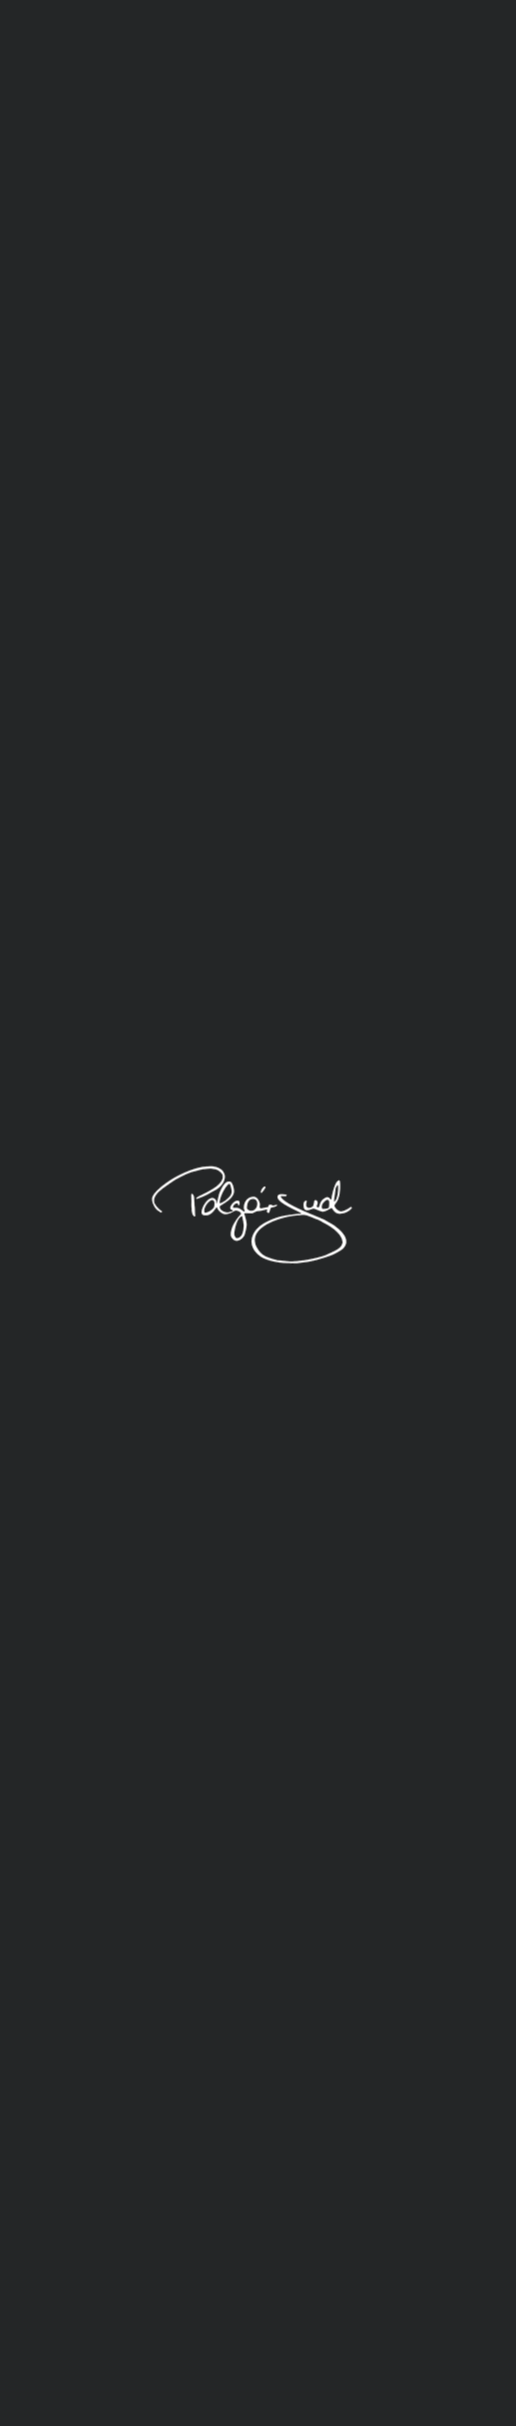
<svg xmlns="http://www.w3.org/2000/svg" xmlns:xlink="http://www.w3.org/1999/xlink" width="516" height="2426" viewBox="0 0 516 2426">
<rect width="100%" height="100%" fill="#242627"/>
<image xlink:href="image0.png" x="151" y="1165" width="202" height="100"/>
</svg>
